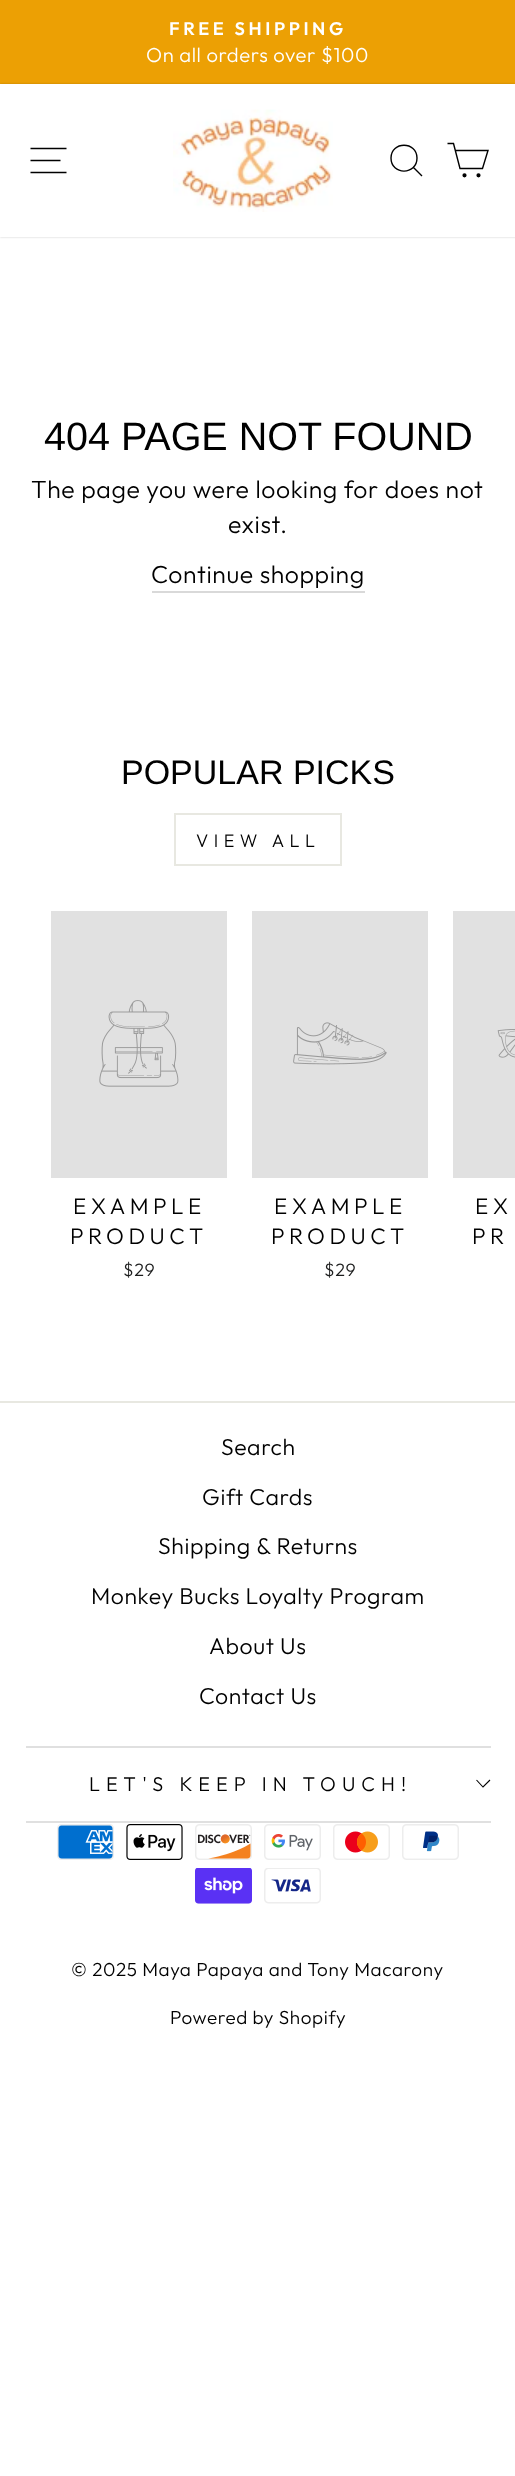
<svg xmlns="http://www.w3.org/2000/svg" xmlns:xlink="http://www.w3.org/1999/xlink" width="515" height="2476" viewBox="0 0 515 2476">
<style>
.cls-1{font:600 18.25px Outfit;letter-spacing:3.6px;fill:#ffffff}
.cls-2{font:300 20.25px Outfit;letter-spacing:0.6px;fill:#ffffff}
.cls-3{font:39.5px Arimo;fill:#000000}
.cls-4{font:300 24.8px Outfit;letter-spacing:0.6px;fill:#000000}
.cls-5{font:34px Arimo;fill:#000000}
.cls-6{font:300 18px Outfit;letter-spacing:5.5px;fill:#000000}
.cls-7{font:300 22.5px Outfit;letter-spacing:4.5px;fill:#000000}
.cls-8{font:300 18px Outfit;letter-spacing:0.6px;fill:#1c1d1d}
.cls-9{font:300 23px Outfit;letter-spacing:0.6px;fill:#000000}
.cls-10{font:300 19.9px Outfit;letter-spacing:6px;fill:#000000}
.cls-11{font:300 18.9px Outfit;letter-spacing:0.6px;fill:#000000}
</style>
<defs>
<clipPath id="clip1"><path d="M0 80H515V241H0ZM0 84H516V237H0Z" clip-rule="evenodd"/></clipPath>
</defs>
<rect width="100%" height="100%" fill="#ffffff"/>
<rect fill="#eca004" x="0" y="0" width="515" height="84"/>
<g clip-path="url(#clip1)">
<rect fill="#000000" fill-opacity="0.2" filter="blur(1px)" x="0" y="84" width="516" height="153"/>
</g>
<path fill="none" stroke="#000000" stroke-width="1.4" d="M30.5 148.5H66.5M30.5 160.5H60.5M30.5 172.5H66.5"/>
<image xlink:href="image0.png" x="173" y="109" width="160" height="103"/>
<path fill="none" stroke="#000000" stroke-width="1.4" d="M417 158C417 175.5 391 175.5 391 158C391 141 417 141 417 158ZM422 176L413.5 167.5"/>
<path fill="none" stroke="#000000" stroke-width="1.4" d="M455.5 150.5H488L482.5 168.5H460L453.5 143.5H447.5"/>
<circle fill="#000000" stroke="#000000" stroke-width="1.4" cx="464.5" cy="175.3" r="1.4"/>
<circle fill="#000000" stroke="#000000" stroke-width="1.4" cx="478.5" cy="175.3" r="1.4"/>
<rect fill="#d9d9d9" x="152" y="591" width="213" height="2"/>
<rect fill="none" stroke="#e8e8e1" stroke-width="2" x="175" y="814" width="166" height="51"/>
<rect fill="#e1e1e1" x="51" y="911" width="176" height="267"/>
<image xlink:href="image1.png" x="99" y="1000" width="80" height="87"/>
<rect fill="#e1e1e1" x="252" y="911" width="176" height="267"/>
<image xlink:href="image2.png" x="293" y="1022" width="94" height="43"/>
<rect fill="#e1e1e1" x="453" y="911" width="62" height="267"/>
<image xlink:href="image3.png" x="497" y="1029" width="18" height="29"/>
<rect fill="#e8e8e1" x="0" y="1401" width="515" height="2"/>
<rect fill="#e0e0e0" x="26" y="1746" width="465" height="2"/>
<path fill="none" stroke="#000000" stroke-width="1.1" d="M476.5 1780L483 1787L490 1780"/>
<rect fill="#e0e0e0" x="26" y="1821" width="465" height="2"/>
<image xlink:href="image4.png" x="57" y="1824" width="57" height="36"/>
<image xlink:href="image5.png" x="126" y="1824" width="57" height="36"/>
<image xlink:href="image6.png" x="195" y="1824" width="57" height="36"/>
<image xlink:href="image7.png" x="264" y="1824" width="57" height="36"/>
<image xlink:href="image8.png" x="333" y="1824" width="57" height="36"/>
<image xlink:href="image9.png" x="402" y="1824" width="57" height="36"/>
<image xlink:href="image10.png" x="195" y="1868" width="57" height="36"/>
<image xlink:href="image11.png" x="264" y="1868" width="57" height="36"/>
<text class="cls-1" x="169" y="35">FREE SHIPPING</text>
<text class="cls-2" x="146" y="62">On all orders over $100</text>
<text class="cls-3" x="44" y="450">404 PAGE NOT FOUND</text>
<text class="cls-4" x="31" y="498">The page you were looking for does not</text>
<text class="cls-4" x="228" y="533">exist.</text>
<text class="cls-4" x="151" y="583">Continue shopping</text>
<text class="cls-5" x="121" y="784">POPULAR PICKS</text>
<text class="cls-6" x="196" y="847">VIEW ALL</text>
<text class="cls-7" x="73" y="1214">EXAMPLE</text>
<text class="cls-7" x="70" y="1244">PRODUCT</text>
<text class="cls-8" x="123" y="1276">$29</text>
<text class="cls-7" x="274" y="1214">EXAMPLE</text>
<text class="cls-7" x="271" y="1244">PRODUCT</text>
<text class="cls-8" x="324" y="1276">$29</text>
<text class="cls-7" x="475" y="1214">EX</text>
<text class="cls-7" x="472" y="1244">PR</text>
<text class="cls-9" x="221" y="1455">Search</text>
<text class="cls-9" x="202" y="1505">Gift Cards</text>
<text class="cls-9" x="158" y="1554">Shipping &amp; Returns</text>
<text class="cls-9" x="91" y="1604">Monkey Bucks Loyalty Program</text>
<text class="cls-9" x="209" y="1654">About Us</text>
<text class="cls-9" x="199" y="1704">Contact Us</text>
<text class="cls-10" x="89" y="1791">LET'S KEEP IN TOUCH!</text>
<text class="cls-11" x="71" y="1976">© 2025 Maya Papaya and Tony Macarony</text>
<text class="cls-11" x="170" y="2024">Powered by Shopify</text>
</svg>
